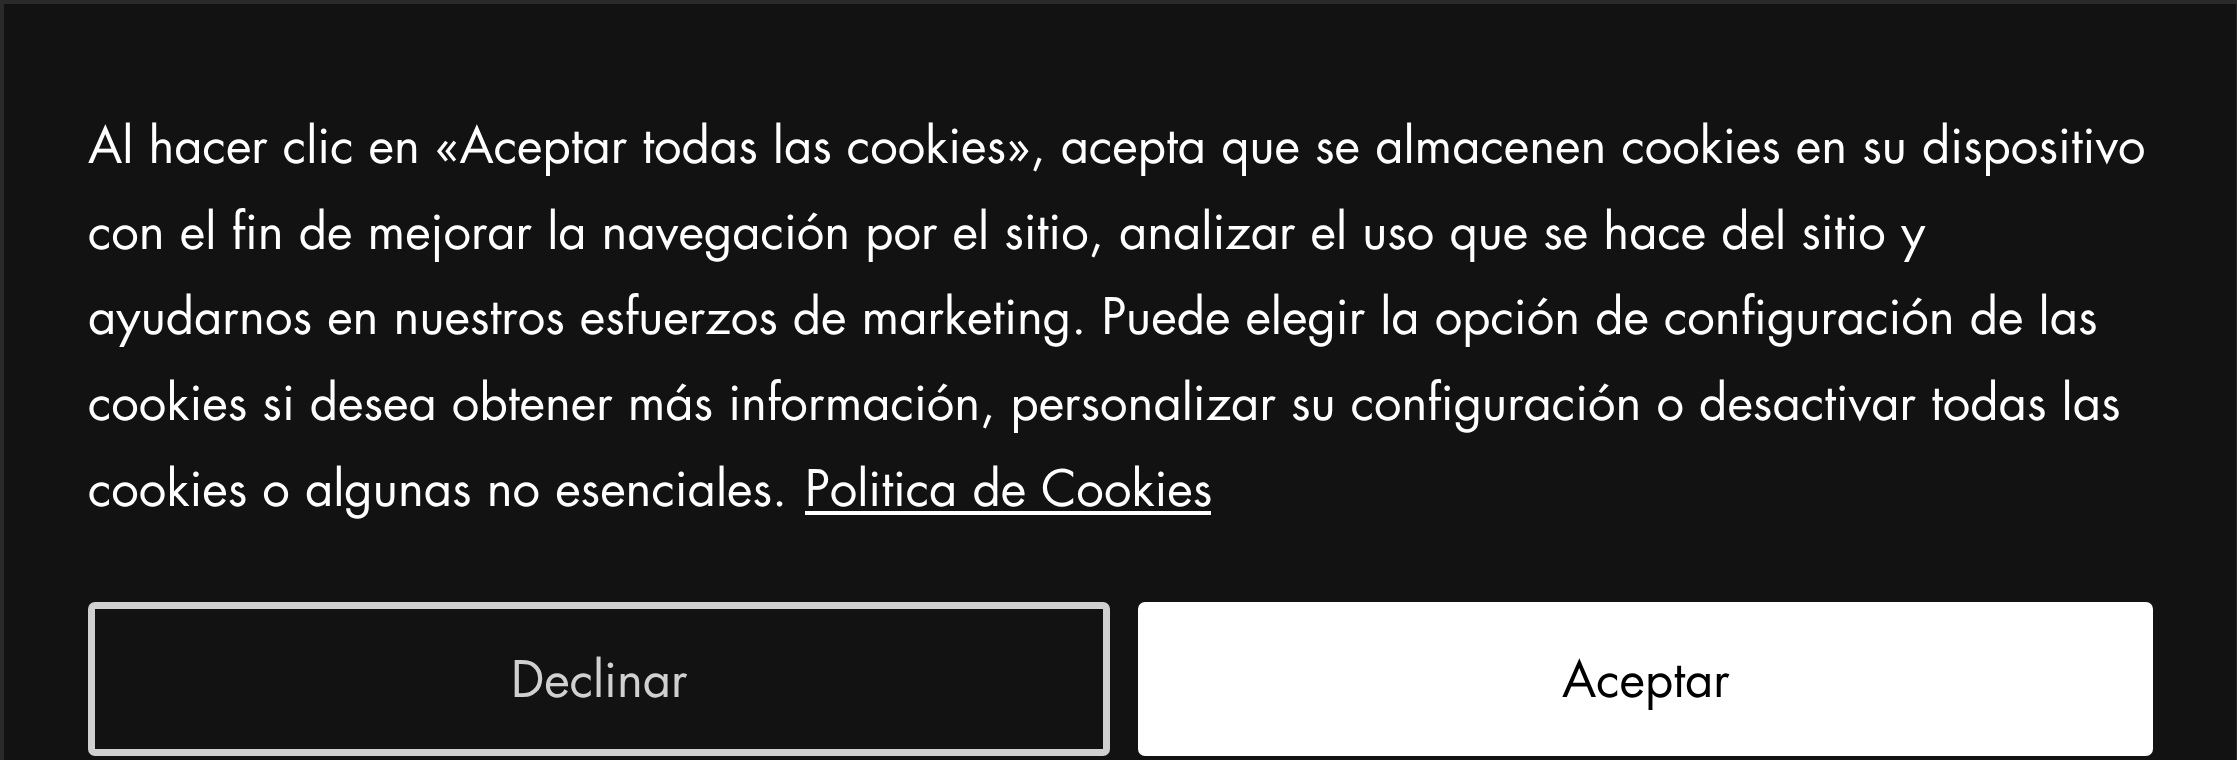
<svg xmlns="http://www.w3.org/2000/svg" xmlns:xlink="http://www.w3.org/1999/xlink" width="2237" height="760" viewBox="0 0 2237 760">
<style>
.cls-1{font:49px Futura;fill:#ffffff}
.cls-2{font:49px Futura;fill:#d0d0d0}
.cls-3{font:49px Futura;fill:#000000}
</style>
<rect width="100%" height="100%" fill="#121212"/>
<rect fill="none" stroke="#2a2a2a" stroke-width="4" x="2" y="2" width="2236" height="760"/>
<rect fill="#ffffff" x="805" y="511" width="406" height="4"/>
<rect fill="none" stroke="#d0d0d0" stroke-width="7" x="91.5" y="605.5" width="1015" height="147" rx="3.5"/>
<rect fill="#ffffff" stroke="#ffffff" stroke-width="7" x="1141.5" y="605.5" width="1008" height="147" rx="3.5"/>
<text class="cls-1"><tspan x="88" y="163">Al hacer clic en «Aceptar todas las cookies», acepta que se almacenen cookies en su dispositivo</tspan><tspan x="88" y="249">con el fin de mejorar la navegación por el sitio, analizar el uso que se hace del sitio y</tspan><tspan x="88" y="334">ayudarnos en nuestros esfuerzos de marketing. Puede elegir la opción de configuración de las</tspan><tspan x="88" y="420">cookies si desea obtener más información, personalizar su configuración o desactivar todas las</tspan><tspan x="88" y="506">cookies o algunas no esenciales.</tspan></text>
<text class="cls-1" x="805" y="506">Politica de Cookies</text>
<text class="cls-2" x="511" y="697">Declinar</text>
<text class="cls-3" x="1562" y="697">Aceptar</text>
</svg>
